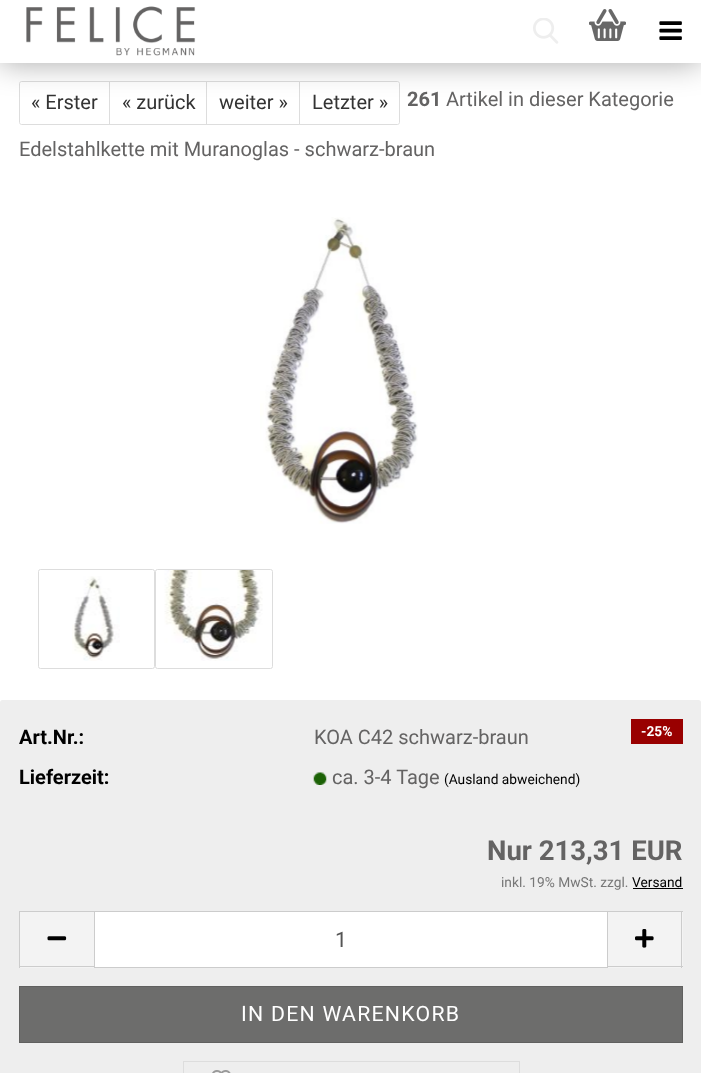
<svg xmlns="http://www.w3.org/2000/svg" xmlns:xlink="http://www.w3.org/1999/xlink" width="701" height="1073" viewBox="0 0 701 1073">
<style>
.cls-1{font:20px Roboto;fill:#333333}
.cls-2{font:bold 20px Roboto;fill:#646363}
.cls-3{font:20px Roboto;fill:#646363}
.cls-4{font:bold 13.75px Roboto;fill:#ffffff}
.cls-5{font:bold 20px Roboto;fill:#000000}
.cls-6{font:13.75px Roboto;fill:#000000}
.cls-7{font:bold 27.5px Roboto;fill:#646363}
.cls-8{font:13.75px Roboto;fill:#777777}
.cls-9{font:21.25px Roboto;fill:#555555}
.cls-10{font:21.25px Roboto;letter-spacing:1.25px;fill:#ffffff}
</style>
<rect width="100%" height="100%" fill="#ffffff"/>
<path fill="none" stroke="#dddddd" d="M21.5 81.5H109.5V124.5H21.5C20.5 124.5 19.5 123.5 19.5 122.5V83.5C19.5 82.5 20.5 81.5 21.5 81.5Z"/>
<rect fill="none" stroke="#dddddd" x="109.5" y="81.5" width="98" height="43"/>
<rect fill="#ffffff" x="207" y="82" width="1" height="42"/>
<rect fill="none" stroke="#dddddd" x="206.5" y="81.5" width="93" height="43"/>
<path fill="#ffffff" stroke="#dddddd" d="M299.5 81.5H397.5C398.5 81.5 399.5 82.5 399.5 83.5V122.5C399.5 123.5 398.5 124.5 397.5 124.5H299.5Z"/>
<rect fill="#000000" fill-opacity="0.35" filter="blur(15.5px)" x="0" y="0" width="701" height="63"/>
<rect fill="#ffffff" x="0" y="0" width="701" height="63"/>
<image xlink:href="image0.png" x="26" y="6" width="170" height="50"/>
<image xlink:href="image1.png" x="533" y="18" width="26" height="26"/>
<image xlink:href="image2.png" x="589" y="9" width="37" height="32"/>
<image xlink:href="image3.png" x="659" y="21" width="23" height="19"/>
<image xlink:href="image4.png" x="260" y="217" width="158" height="307"/>
<rect fill="none" stroke="#dddddd" x="38.5" y="569.5" width="116" height="99" rx="2"/>
<image xlink:href="image5.png" x="72" y="576" width="48" height="85"/>
<rect fill="none" stroke="#dddddd" x="155.5" y="569.5" width="117" height="99" rx="2"/>
<image xlink:href="image6.png" x="164" y="570" width="99" height="91"/>
<rect fill="#eeeeee" x="0" y="700" width="701" height="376" rx="2.5"/>
<rect fill="#990000" x="631" y="719" width="52" height="25"/>
<image xlink:href="image7.png" x="313" y="772" width="14" height="13"/>
<rect fill="#000000" x="633" y="888" width="50" height="1"/>
<rect fill="#f3f3f3" x="20" y="912" width="74" height="56"/>
<rect fill="#cccccc" x="19" y="911" width="75" height="1"/>
<rect fill="#cccccc" x="19" y="966" width="75" height="1"/>
<rect fill="#cccccc" x="19" y="911" width="1" height="57"/>
<image xlink:href="image8.png" x="47" y="936" width="20" height="5"/>
<rect fill="#ffffff" stroke="#cccccc" x="94.5" y="911.5" width="513" height="56"/>
<rect fill="#f3f3f3" x="608" y="912" width="75" height="56"/>
<rect fill="#cccccc" x="608" y="911" width="75" height="1"/>
<rect fill="#cccccc" x="681" y="911" width="1" height="57"/>
<rect fill="#cccccc" x="608" y="966" width="75" height="1"/>
<image xlink:href="image9.png" x="635" y="929" width="19" height="19"/>
<rect fill="#6d6d6c" stroke="#60605f" x="19.5" y="986.5" width="663" height="56"/>
<rect fill="none" stroke="#dddddd" x="183.5" y="1061.5" width="336" height="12"/>
<image xlink:href="image10.png" x="212" y="1070" width="19" height="3"/>
<text class="cls-1" x="31" y="109">« Erster</text>
<text class="cls-1" x="122" y="109">« zurück</text>
<text class="cls-1" x="219" y="109">weiter »</text>
<text class="cls-1" x="312" y="109">Letzter »</text>
<text class="cls-2" x="407" y="106">261</text>
<text class="cls-3" x="446" y="106">Artikel in dieser Kategorie</text>
<text class="cls-3" x="19" y="156">Edelstahlkette mit Muranoglas - schwarz-braun</text>
<text class="cls-4" x="641" y="736">-25%</text>
<text class="cls-5" x="19" y="744">Art.Nr.:</text>
<text class="cls-3" x="314" y="744">KOA C42 schwarz-braun</text>
<text class="cls-5" x="19" y="784">Lieferzeit:</text>
<text class="cls-3" x="332" y="784">ca. 3-4 Tage</text>
<text class="cls-6" x="444" y="784">(Ausland abweichend)</text>
<text class="cls-7" x="487" y="860">Nur 213,31 EUR</text>
<text class="cls-8" x="501" y="887">inkl. 19% MwSt. zzgl.</text>
<text class="cls-6" x="632" y="887">Versand</text>
<text class="cls-9" x="335" y="947">1</text>
<text class="cls-10" x="241" y="1021">IN DEN WARENKORB</text>
</svg>
